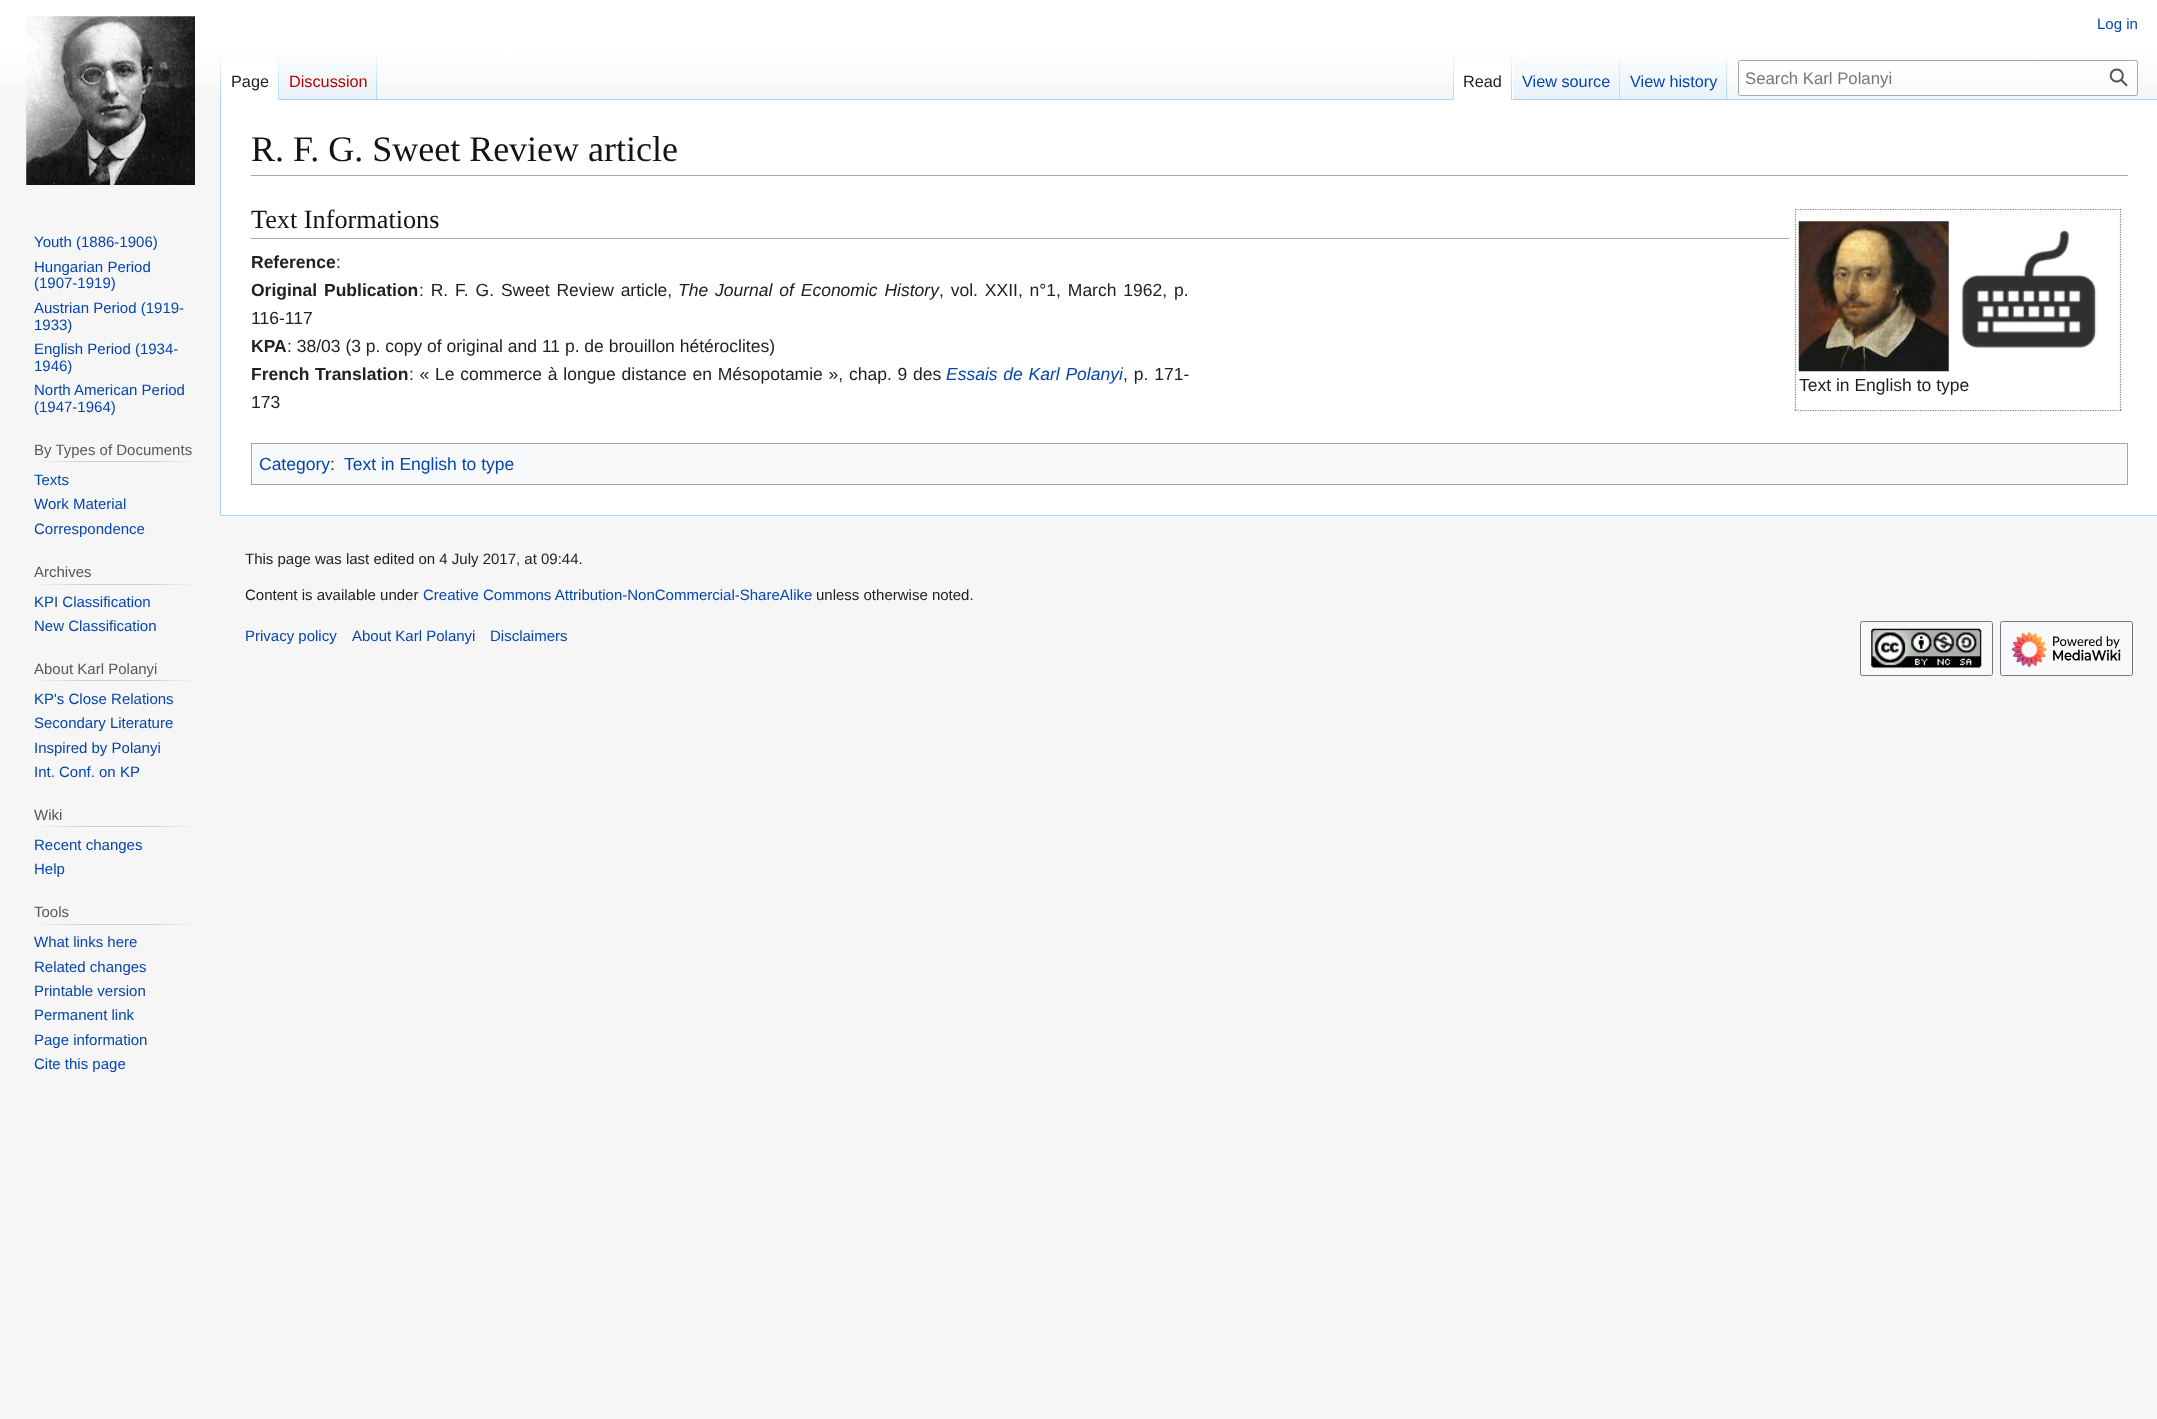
<svg xmlns="http://www.w3.org/2000/svg" xmlns:xlink="http://www.w3.org/1999/xlink" width="2157" height="1419" viewBox="0 0 2157 1419">
<style>
.cls-1{font:15px Liberation Sans;fill:#0645ad}
.cls-2{font:16.25px Liberation Sans;fill:#202122}
.cls-3{font:16.25px Liberation Sans;fill:#ba0000}
.cls-4{font:16.25px Liberation Sans;fill:#0645ad}
.cls-5{font:16.75px Liberation Sans;fill:#72777d}
.cls-6{font:15px Liberation Sans;fill:#54595d}
.cls-7{font:36px Liberation Serif;fill:#101418}
.cls-8{font:26.25px Liberation Serif;fill:#101418}
.cls-9{font:bold 17.5px Liberation Sans;fill:#202122}
.cls-10{font:17.5px Liberation Sans;fill:#202122}
.cls-11{font:italic 17.5px Liberation Sans;fill:#202122}
.cls-12{font:italic 17.5px Liberation Sans;fill:#0645ad}
.cls-13{font:17.5px Liberation Sans;fill:#0645ad}
.cls-14{font:15px Liberation Sans;fill:#202122}
</style>
<defs>
<linearGradient id="g1" gradientUnits="userSpaceOnUse" x1="1079" y1="0" x2="1079" y2="100"><stop offset="0.5" stop-color="#ffffff"/><stop offset="1" stop-color="#f6f6f6"/></linearGradient>
<linearGradient id="g2" gradientUnits="userSpaceOnUse" x1="221" y1="50" x2="221" y2="100"><stop offset="0" stop-color="#a7d7f9" stop-opacity="0"/><stop offset="1" stop-color="#a7d7f9"/></linearGradient>
<linearGradient id="g3" gradientUnits="userSpaceOnUse" x1="278" y1="50" x2="278" y2="100"><stop offset="0" stop-color="#ffffff"/><stop offset="1" stop-color="#a7d7f9"/></linearGradient>
<linearGradient id="g4" gradientUnits="userSpaceOnUse" x1="328" y1="100" x2="328" y2="50"><stop offset="0" stop-color="#77c1f6"/><stop offset="0.03" stop-color="#e8f2f8"/><stop offset="1" stop-color="#ffffff"/></linearGradient>
<linearGradient id="g5" gradientUnits="userSpaceOnUse" x1="377" y1="50" x2="377" y2="100"><stop offset="0" stop-color="#a7d7f9" stop-opacity="0"/><stop offset="1" stop-color="#a7d7f9"/></linearGradient>
<linearGradient id="g6" gradientUnits="userSpaceOnUse" x1="1453" y1="50" x2="1453" y2="100"><stop offset="0" stop-color="#a7d7f9" stop-opacity="0"/><stop offset="1" stop-color="#a7d7f9"/></linearGradient>
<linearGradient id="g7" gradientUnits="userSpaceOnUse" x1="1512" y1="50" x2="1512" y2="100"><stop offset="0" stop-color="#ffffff"/><stop offset="1" stop-color="#a7d7f9"/></linearGradient>
<linearGradient id="g8" gradientUnits="userSpaceOnUse" x1="1566" y1="100" x2="1566" y2="50"><stop offset="0" stop-color="#77c1f6"/><stop offset="0.03" stop-color="#e8f2f8"/><stop offset="1" stop-color="#ffffff"/></linearGradient>
<linearGradient id="g9" gradientUnits="userSpaceOnUse" x1="1619" y1="50" x2="1619" y2="100"><stop offset="0" stop-color="#a7d7f9" stop-opacity="0"/><stop offset="1" stop-color="#a7d7f9"/></linearGradient>
<linearGradient id="g10" gradientUnits="userSpaceOnUse" x1="1674" y1="100" x2="1674" y2="50"><stop offset="0" stop-color="#77c1f6"/><stop offset="0.03" stop-color="#e8f2f8"/><stop offset="1" stop-color="#ffffff"/></linearGradient>
<linearGradient id="g11" gradientUnits="userSpaceOnUse" x1="1727" y1="50" x2="1727" y2="100"><stop offset="0" stop-color="#a7d7f9" stop-opacity="0"/><stop offset="1" stop-color="#a7d7f9"/></linearGradient>
<linearGradient id="g12" gradientUnits="userSpaceOnUse" x1="34" y1="462" x2="198" y2="462"><stop offset="0" stop-color="#f6f6f6"/><stop offset="0.33" stop-color="#c8ccd1"/><stop offset="0.66" stop-color="#c8ccd1"/><stop offset="1" stop-color="#f6f6f6"/></linearGradient>
<linearGradient id="g13" gradientUnits="userSpaceOnUse" x1="34" y1="584" x2="198" y2="584"><stop offset="0" stop-color="#f6f6f6"/><stop offset="0.33" stop-color="#c8ccd1"/><stop offset="0.66" stop-color="#c8ccd1"/><stop offset="1" stop-color="#f6f6f6"/></linearGradient>
<linearGradient id="g14" gradientUnits="userSpaceOnUse" x1="34" y1="681" x2="198" y2="681"><stop offset="0" stop-color="#f6f6f6"/><stop offset="0.33" stop-color="#c8ccd1"/><stop offset="0.66" stop-color="#c8ccd1"/><stop offset="1" stop-color="#f6f6f6"/></linearGradient>
<linearGradient id="g15" gradientUnits="userSpaceOnUse" x1="34" y1="827" x2="198" y2="827"><stop offset="0" stop-color="#f6f6f6"/><stop offset="0.33" stop-color="#c8ccd1"/><stop offset="0.66" stop-color="#c8ccd1"/><stop offset="1" stop-color="#f6f6f6"/></linearGradient>
<linearGradient id="g16" gradientUnits="userSpaceOnUse" x1="34" y1="924" x2="198" y2="924"><stop offset="0" stop-color="#f6f6f6"/><stop offset="0.33" stop-color="#c8ccd1"/><stop offset="0.66" stop-color="#c8ccd1"/><stop offset="1" stop-color="#f6f6f6"/></linearGradient>
</defs>
<rect width="100%" height="100%" fill="#f6f6f6"/>
<rect fill="url(#g1)" x="0" y="0" width="2157" height="86"/>
<rect fill="#a7d7f9" x="220" y="515" width="1937" height="1"/>
<rect fill="#a7d7f9" x="220" y="99" width="1" height="417"/>
<rect fill="url(#g2)" x="220" y="50" width="1" height="50"/>
<rect fill="#ffffff" x="221" y="64" width="57" height="36"/>
<rect fill="url(#g3)" x="278" y="50" width="1" height="50"/>
<rect fill="url(#g4)" x="279" y="57" width="99" height="43"/>
<rect fill="url(#g5)" x="376" y="50" width="1" height="50"/>
<rect fill="#a7d7f9" x="378" y="99" width="1779" height="1"/>
<rect fill="url(#g6)" x="1453" y="50" width="1" height="50"/>
<rect fill="#ffffff" x="1454" y="64" width="59" height="36"/>
<rect fill="url(#g7)" x="1511" y="50" width="1" height="50"/>
<rect fill="url(#g8)" x="1513" y="57" width="107" height="43"/>
<rect fill="url(#g9)" x="1619" y="50" width="1" height="50"/>
<rect fill="url(#g10)" x="1620" y="57" width="108" height="43"/>
<rect fill="url(#g11)" x="1726" y="50" width="1" height="50"/>
<rect fill="#ffffff" fill-opacity="0.5" stroke="#a2a9b1" x="1738.5" y="60.5" width="399" height="35" rx="2"/>
<image xlink:href="image0.png" x="2109" y="68" width="19" height="19"/>
<image xlink:href="image1.png" x="26" y="16" width="169" height="169"/>
<rect fill="url(#g12)" x="34" y="461" width="164" height="1"/>
<rect fill="url(#g13)" x="34" y="584" width="164" height="1"/>
<rect fill="url(#g14)" x="34" y="680" width="164" height="1"/>
<rect fill="url(#g15)" x="34" y="826" width="164" height="1"/>
<rect fill="url(#g16)" x="34" y="924" width="164" height="1"/>
<rect fill="#ffffff" x="221" y="100" width="1936" height="415"/>
<rect fill="#a2a9b1" x="251" y="175" width="1877" height="1"/>
<rect fill="#a2a9b1" x="251" y="238" width="1538" height="1"/>
<path fill="none" stroke="#808080" stroke-width="1.2" stroke-dasharray="1.25 1.25" d="M1795 209.5H2121"/>
<path fill="none" stroke="#808080" stroke-width="1.2" stroke-dasharray="1.25 1.25" d="M2120.5 209V411"/>
<path fill="none" stroke="#808080" stroke-width="1.2" stroke-dasharray="1.25 1.25" d="M1795 410.5H2121"/>
<path fill="none" stroke="#808080" stroke-width="1.2" stroke-dasharray="1.25 1.25" d="M1795.5 209V411"/>
<image xlink:href="image2.png" x="1798" y="221" width="151" height="151"/>
<image xlink:href="image3.png" x="1961" y="230" width="136" height="118"/>
<rect fill="#f8f9fa" stroke="#a2a9b1" x="251.5" y="443.5" width="1876" height="41"/>
<rect fill="#f8f9fa" stroke="#72777d" x="1860.5" y="621.5" width="132" height="54" rx="2"/>
<image xlink:href="image4.png" x="1871" y="628" width="111" height="40"/>
<rect fill="#f8f9fa" stroke="#72777d" x="2000.5" y="621.5" width="132" height="54" rx="2"/>
<image xlink:href="image5.png" x="2011" y="631" width="110" height="37"/>
<text class="cls-1" x="2097" y="29">Log in</text>
<text class="cls-2" x="231" y="87">Page</text>
<text class="cls-3" x="289" y="87">Discussion</text>
<text class="cls-2" x="1463" y="87">Read</text>
<text class="cls-4" x="1522" y="87">View source</text>
<text class="cls-4" x="1630" y="87">View history</text>
<text class="cls-5" x="1745" y="84">Search Karl Polanyi</text>
<text class="cls-1"><tspan x="34" y="247">Youth (1886-1906)</tspan><tspan x="34" y="272">Hungarian Period</tspan><tspan x="34" y="288">(1907-1919)</tspan><tspan x="34" y="313">Austrian Period (1919-</tspan><tspan x="34" y="330">1933)</tspan><tspan x="34" y="354">English Period (1934-</tspan><tspan x="34" y="371">1946)</tspan><tspan x="34" y="395">North American Period</tspan><tspan x="34" y="412">(1947-1964)</tspan></text>
<text class="cls-6" x="34" y="455">By Types of Documents</text>
<text class="cls-1"><tspan x="34" y="485">Texts</tspan><tspan x="34" y="509">Work Material</tspan><tspan x="34" y="534">Correspondence</tspan></text>
<text class="cls-6" x="34" y="577">Archives</text>
<text class="cls-1"><tspan x="34" y="607">KPI Classification</tspan><tspan x="34" y="631">New Classification</tspan></text>
<text class="cls-6" x="34" y="674">About Karl Polanyi</text>
<text class="cls-1"><tspan x="34" y="704">KP's Close Relations</tspan><tspan x="34" y="728">Secondary Literature</tspan><tspan x="34" y="753">Inspired by Polanyi</tspan><tspan x="34" y="777">Int. Conf. on KP</tspan></text>
<text class="cls-6" x="34" y="820">Wiki</text>
<text class="cls-1"><tspan x="34" y="850">Recent changes</tspan><tspan x="34" y="874">Help</tspan></text>
<text class="cls-6" x="34" y="917">Tools</text>
<text class="cls-1"><tspan x="34" y="947">What links here</tspan><tspan x="34" y="972">Related changes</tspan><tspan x="34" y="996">Printable version</tspan><tspan x="34" y="1020">Permanent link</tspan><tspan x="34" y="1045">Page information</tspan><tspan x="34" y="1069">Cite this page</tspan></text>
<text class="cls-7" x="251" y="161">R. F. G. Sweet Review article</text>
<text class="cls-8" x="251" y="228">Text Informations</text>
<text class="cls-9" x="251" y="268">Reference</text>
<text class="cls-10" x="336" y="268">:</text>
<text class="cls-9" x="251" y="296" word-spacing="2">Original Publication</text>
<text class="cls-10" x="419" y="296" word-spacing="2">: R. F. G. Sweet Review article,</text>
<text class="cls-11" x="678" y="296" word-spacing="2">The Journal of Economic History</text>
<text class="cls-10" x="939" y="296" word-spacing="2">, vol. XXII, n°1, March 1962, p.</text>
<text class="cls-10" x="251" y="324">116-117</text>
<text class="cls-9" x="251" y="352">KPA</text>
<text class="cls-10" x="287" y="352">: 38/03 (3 p. copy of original and 11 p. de brouillon hétéroclites)</text>
<text class="cls-9" x="251" y="380" word-spacing="0.9">French Translation</text>
<text class="cls-10" x="409" y="380" word-spacing="0.9">: « Le commerce à longue distance en Mésopotamie », chap. 9 des</text>
<text class="cls-12" x="946" y="380" word-spacing="0.9">Essais de Karl Polanyi</text>
<text class="cls-10" x="1123" y="380" word-spacing="1">, p. 171-</text>
<text class="cls-10" x="251" y="408">173</text>
<text class="cls-10" x="1799" y="391">Text in English to type</text>
<text class="cls-13" x="259" y="470">Category</text>
<text class="cls-10" x="330" y="470">:</text>
<text class="cls-13" x="344" y="470">Text in English to type</text>
<text class="cls-14" x="245" y="564">This page was last edited on 4 July 2017, at 09:44.</text>
<text class="cls-14" x="245" y="600">Content is available under</text>
<text class="cls-1" x="423" y="600">Creative Commons Attribution-NonCommercial-ShareAlike</text>
<text class="cls-14" x="816" y="600">unless otherwise noted.</text>
<text class="cls-1" x="245" y="641">Privacy policy</text>
<text class="cls-1" x="352" y="641">About Karl Polanyi</text>
<text class="cls-1" x="490" y="641">Disclaimers</text>
</svg>
